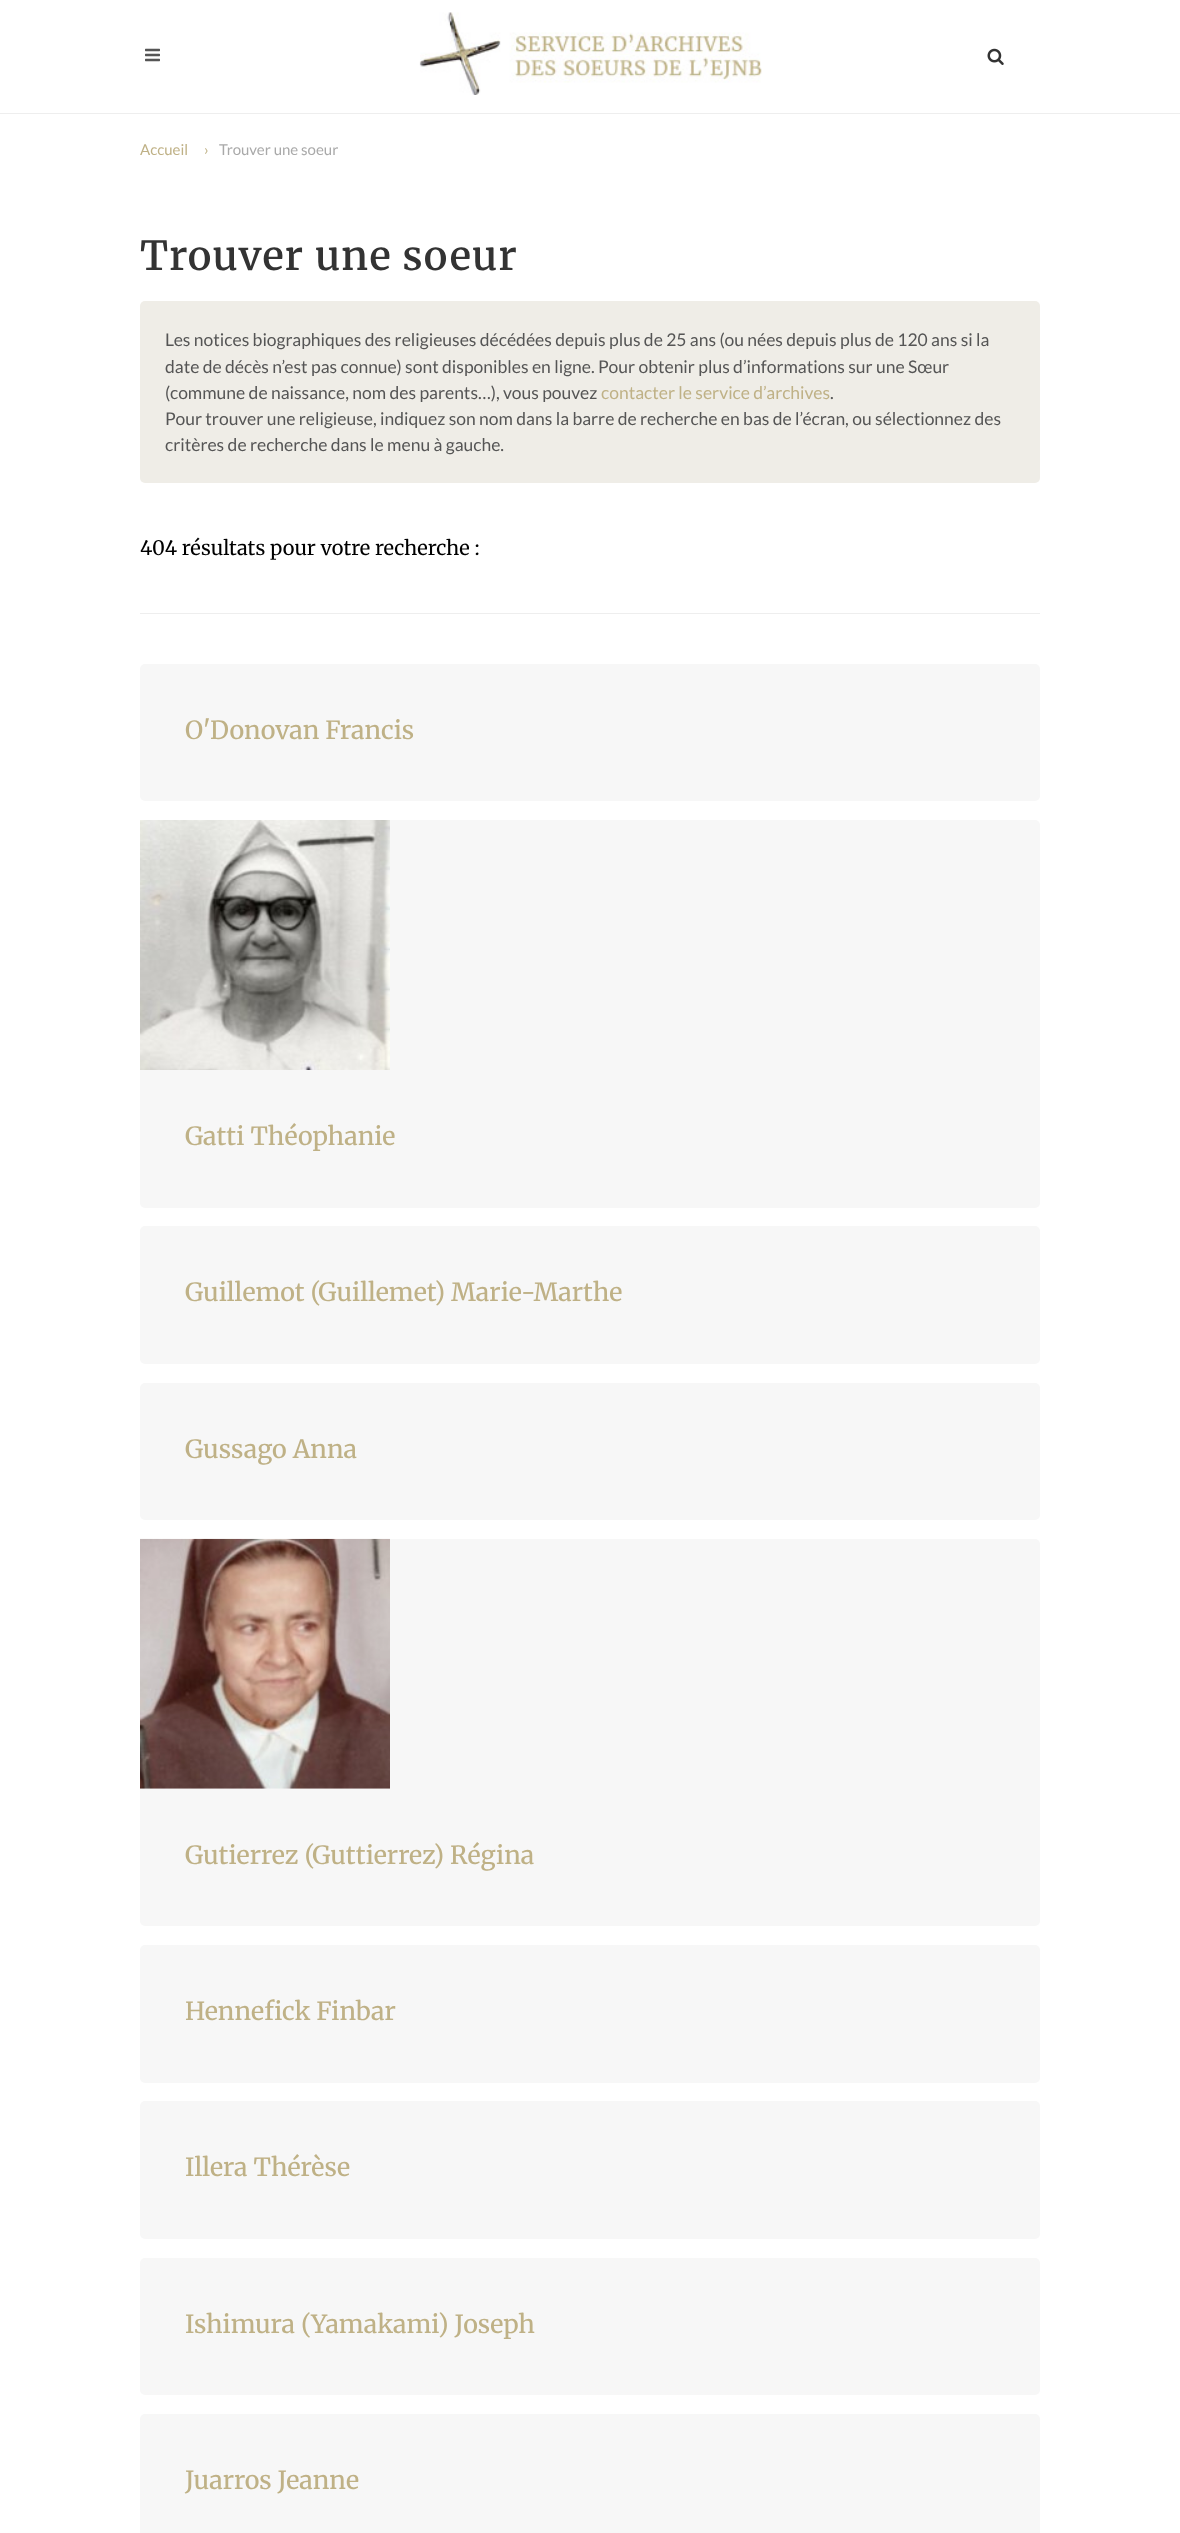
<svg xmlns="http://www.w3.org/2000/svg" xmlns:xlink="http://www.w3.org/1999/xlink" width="1180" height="2533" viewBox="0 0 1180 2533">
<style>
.cls-1{font:15px Lato;fill:#bfb186}
.cls-2{font:15px Lato;fill:#a9a9a9}
.cls-3{font:600 40px Merriweather;letter-spacing:1.25px;fill:#333333}
.cls-4{font:17.5px Lato;fill:#555555}
.cls-5{font:17.5px Lato;fill:#bfb186}
.cls-6{font:20px Merriweather;fill:#000000}
.cls-7{font:500 25px Merriweather;fill:#bfb186}
</style>
<rect width="100%" height="100%" fill="#ffffff"/>
<rect fill="#eeeeee" x="0" y="113" width="1180" height="1"/>
<image xlink:href="image0.png" x="145" y="48" width="15" height="14"/>
<image xlink:href="image1.png" x="419" y="12" width="343" height="83"/>
<image xlink:href="image2.png" x="987" y="48" width="17" height="17"/>
<rect fill="#efede7" x="140" y="301" width="900" height="182" rx="5"/>
<rect fill="#eeeeee" x="140" y="613" width="900" height="1"/>
<rect fill="#f7f7f7" x="140" y="664" width="900" height="137" rx="5"/>
<rect fill="#f7f7f7" x="140" y="820" width="900" height="388" rx="5"/>
<image xlink:href="image3.png" x="140" y="820" width="250" height="250"/>
<rect fill="#f7f7f7" x="140" y="1226" width="900" height="138" rx="5"/>
<rect fill="#f7f7f7" x="140" y="1383" width="900" height="137" rx="5"/>
<rect fill="#f7f7f7" x="140" y="1539" width="900" height="387" rx="5"/>
<image xlink:href="image4.png" x="140" y="1538" width="250" height="251"/>
<rect fill="#f7f7f7" x="140" y="1945" width="900" height="138" rx="5"/>
<rect fill="#f7f7f7" x="140" y="2101" width="900" height="138" rx="5"/>
<rect fill="#f7f7f7" x="140" y="2258" width="900" height="137" rx="5"/>
<rect fill="#f7f7f7" x="140" y="2414" width="900" height="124" rx="5"/>
<text class="cls-1" x="140" y="155">Accueil</text>
<text class="cls-1" x="204" y="155">›</text>
<text class="cls-2" x="219" y="155">Trouver une soeur</text>
<text class="cls-3" x="140" y="270">Trouver une soeur</text>
<text class="cls-4"><tspan x="165" y="346">Les notices biographiques des religieuses décédées depuis plus de 25 ans (ou nées depuis plus de 120 ans si la</tspan><tspan x="165" y="373">date de décès n’est pas connue) sont disponibles en ligne. Pour obtenir plus d’informations sur une Sœur</tspan><tspan x="165" y="399">(commune de naissance, nom des parents…), vous pouvez</tspan></text>
<text class="cls-5" x="601" y="399">contacter le service d’archives</text>
<text class="cls-4" x="830" y="399">.</text>
<text class="cls-4"><tspan x="165" y="425">Pour trouver une religieuse, indiquez son nom dans la barre de recherche en bas de l’écran, ou sélectionnez des</tspan><tspan x="165" y="451">critères de recherche dans le menu à gauche.</tspan></text>
<text class="cls-6" x="140" y="555">404 résultats pour votre recherche :</text>
<text class="cls-7" x="185" y="739">O'Donovan Francis</text>
<text class="cls-7" x="185" y="1145">Gatti Théophanie</text>
<text class="cls-7" x="185" y="1301">Guillemot (Guillemet) Marie-Marthe</text>
<text class="cls-7" x="185" y="1458">Gussago Anna</text>
<text class="cls-7" x="185" y="1864">Gutierrez (Guttierrez) Régina</text>
<text class="cls-7" x="185" y="2020">Hennefick Finbar</text>
<text class="cls-7" x="185" y="2176">Illera Thérèse</text>
<text class="cls-7" x="185" y="2333">Ishimura (Yamakami) Joseph</text>
<text class="cls-7" x="185" y="2489">Juarros Jeanne</text>
</svg>
